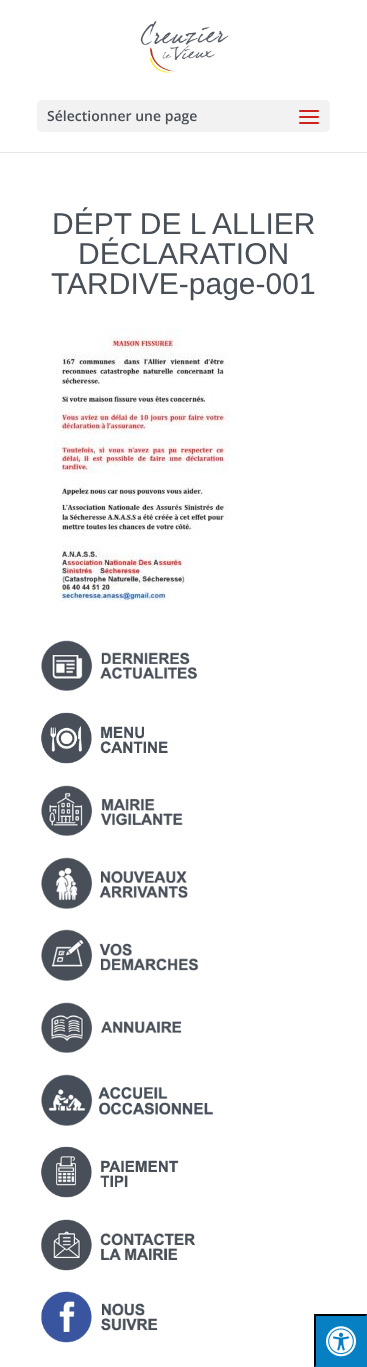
<svg xmlns="http://www.w3.org/2000/svg" xmlns:xlink="http://www.w3.org/1999/xlink" width="367" height="1367" viewBox="0 0 367 1367">
<style>
.cls-1{font:600 14px Open Sans;fill:#484f57}
.cls-2{font:30px Liberation Sans;fill:#484f57}
</style>
<rect width="100%" height="100%" fill="#ffffff"/>
<rect fill="#e6e6e6" x="0" y="152" width="367" height="1"/>
<image xlink:href="image0.png" x="140" y="21" width="89" height="52"/>
<rect fill="#f2f2f2" x="37" y="100" width="293" height="32" rx="5"/>
<image xlink:href="image1.png" x="299" y="110" width="20" height="14"/>
<image xlink:href="image2.png" x="53" y="329" width="176" height="272"/>
<image xlink:href="image3.png" x="41" y="640" width="156" height="51"/>
<image xlink:href="image4.png" x="41" y="712" width="127" height="52"/>
<image xlink:href="image5.png" x="41" y="785" width="142" height="51"/>
<image xlink:href="image6.png" x="41" y="857" width="147" height="52"/>
<image xlink:href="image7.png" x="41" y="929" width="158" height="52"/>
<image xlink:href="image8.png" x="41" y="1002" width="141" height="51"/>
<image xlink:href="image9.png" x="41" y="1074" width="172" height="52"/>
<image xlink:href="image10.png" x="41" y="1146" width="138" height="52"/>
<image xlink:href="image11.png" x="41" y="1219" width="154" height="52"/>
<image xlink:href="image12.png" x="41" y="1291" width="117" height="52"/>
<rect fill="#0780c3" x="314" y="1314" width="53" height="53"/>
<path fill="#000000" d="M314 1314H367L366 1316H316Z"/>
<path fill="#0780c3" d="M367 1314V1367L366 1366V1316Z"/>
<path fill="#000000" d="M314 1367V1314L316 1316V1366Z"/>
<image xlink:href="image13.png" x="326" y="1326" width="30" height="31"/>
<text class="cls-1" x="47" y="121">Sélectionner une page</text>
<text class="cls-2" x="52" y="234">DÉPT DE L ALLIER</text>
<text class="cls-2" x="78" y="264">DÉCLARATION</text>
<text class="cls-2" x="51" y="294">TARDIVE-page-001</text>
</svg>
